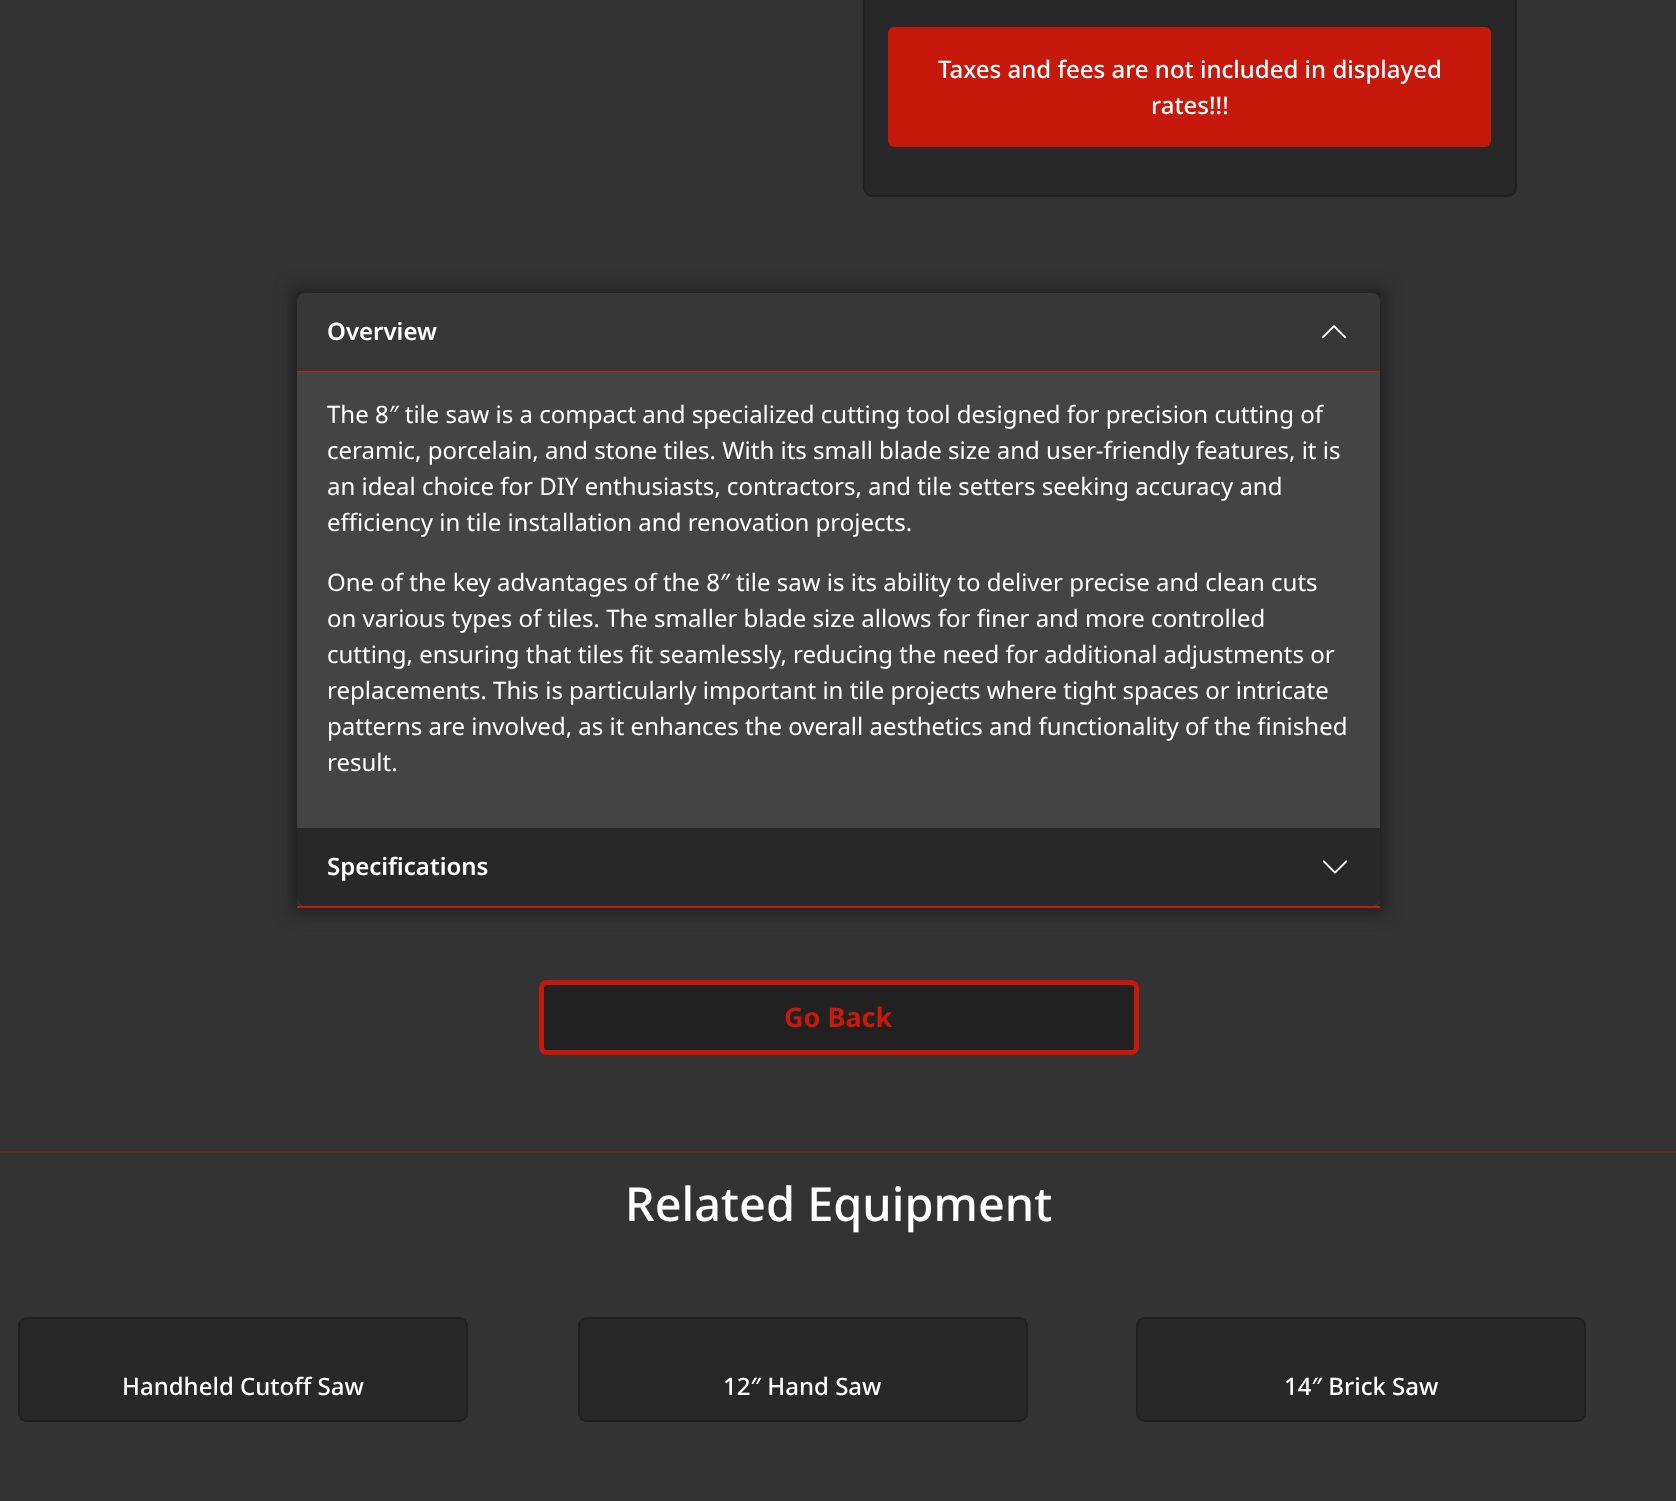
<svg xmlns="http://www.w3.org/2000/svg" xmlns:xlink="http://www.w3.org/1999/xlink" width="1676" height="1501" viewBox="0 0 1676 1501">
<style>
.cls-1{font:500 24px Noto Sans;fill:#ffffff}
.cls-2{font:600 24px Noto Sans;fill:#ffffff}
.cls-3{font:24px Noto Sans;fill:#ffffff}
.cls-4{font:bold 27px Noto Sans;fill:#c7180c}
.cls-5{font:500 46.9px Noto Sans;fill:#ffffff}
</style>
<rect width="100%" height="100%" fill="#333333"/>
<rect fill="#282828" stroke="#222222" stroke-width="2" x="864" y="-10" width="652" height="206" rx="8"/>
<rect fill="#c7180c" x="888" y="27" width="603" height="120" rx="6"/>
<rect fill="#222222" filter="blur(7.5px)" x="291" y="287" width="1095" height="627"/>
<rect fill="#212529" x="297" y="293" width="1083" height="8"/>
<rect fill="#c7180c" x="297" y="371" width="1083" height="1"/>
<path fill="#373737" d="M305 293H1372C1376.5 293 1380 296.5 1380 301V371H297V301C297 296.5 300.5 293 305 293Z"/>
<image xlink:href="image0.png" x="1321" y="325" width="26" height="14"/>
<rect fill="#444444" x="297" y="372" width="1083" height="456"/>
<path fill="#3f3f3f" d="M297 828H1380V899C1380 904 1376 908 1371 908H306C301 908 297 904 297 899Z"/>
<rect fill="#c7180c" x="297" y="906" width="1083" height="2"/>
<path fill="#282828" d="M297 828H1380V898C1380 902.5 1376.5 906 1372 906H305C300.5 906 297 902.5 297 898Z"/>
<image xlink:href="image1.png" x="1322" y="860" width="26" height="14"/>
<rect fill="#212121" stroke="#c7180c" stroke-width="5" x="541.5" y="982.5" width="595" height="70" rx="5.5"/>
<rect fill="#582c29" x="0" y="1151" width="1676" height="2"/>
<rect fill="#282828" x="18" y="1317" width="450" height="105" rx="9"/>
<rect fill="none" stroke="#000000" stroke-opacity="0.18" stroke-width="2" x="19" y="1318" width="448" height="103" rx="8"/>
<rect fill="#282828" x="578" y="1317" width="450" height="105" rx="9"/>
<rect fill="none" stroke="#000000" stroke-opacity="0.18" stroke-width="2" x="579" y="1318" width="448" height="103" rx="8"/>
<rect fill="#282828" x="1136" y="1317" width="450" height="105" rx="9"/>
<rect fill="none" stroke="#000000" stroke-opacity="0.18" stroke-width="2" x="1137" y="1318" width="448" height="103" rx="8"/>
<text class="cls-1" x="938" y="78">Taxes and fees are not included in displayed</text>
<text class="cls-1" x="1151" y="114">rates!!!</text>
<text class="cls-2" x="327" y="340">Overview</text>
<text class="cls-3"><tspan x="327" y="423">The 8″ tile saw is a compact and specialized cutting tool designed for precision cutting of</tspan><tspan x="327" y="459">ceramic, porcelain, and stone tiles. With its small blade size and user-friendly features, it is</tspan><tspan x="327" y="495">an ideal choice for DIY enthusiasts, contractors, and tile setters seeking accuracy and</tspan><tspan x="327" y="531">efficiency in tile installation and renovation projects.</tspan></text>
<text class="cls-3"><tspan x="327" y="591">One of the key advantages of the 8″ tile saw is its ability to deliver precise and clean cuts</tspan><tspan x="327" y="627">on various types of tiles. The smaller blade size allows for finer and more controlled</tspan><tspan x="327" y="663">cutting, ensuring that tiles fit seamlessly, reducing the need for additional adjustments or</tspan><tspan x="327" y="699">replacements. This is particularly important in tile projects where tight spaces or intricate</tspan><tspan x="327" y="735">patterns are involved, as it enhances the overall aesthetics and functionality of the finished</tspan><tspan x="327" y="771">result.</tspan></text>
<text class="cls-2" x="327" y="875">Specifications</text>
<text class="cls-4" x="784" y="1027">Go Back</text>
<text class="cls-5" x="625" y="1221">Related Equipment</text>
<text class="cls-1" x="122" y="1395">Handheld Cutoff Saw</text>
<text class="cls-1" x="723" y="1395">12″ Hand Saw</text>
<text class="cls-1" x="1284" y="1395">14″ Brick Saw</text>
</svg>
